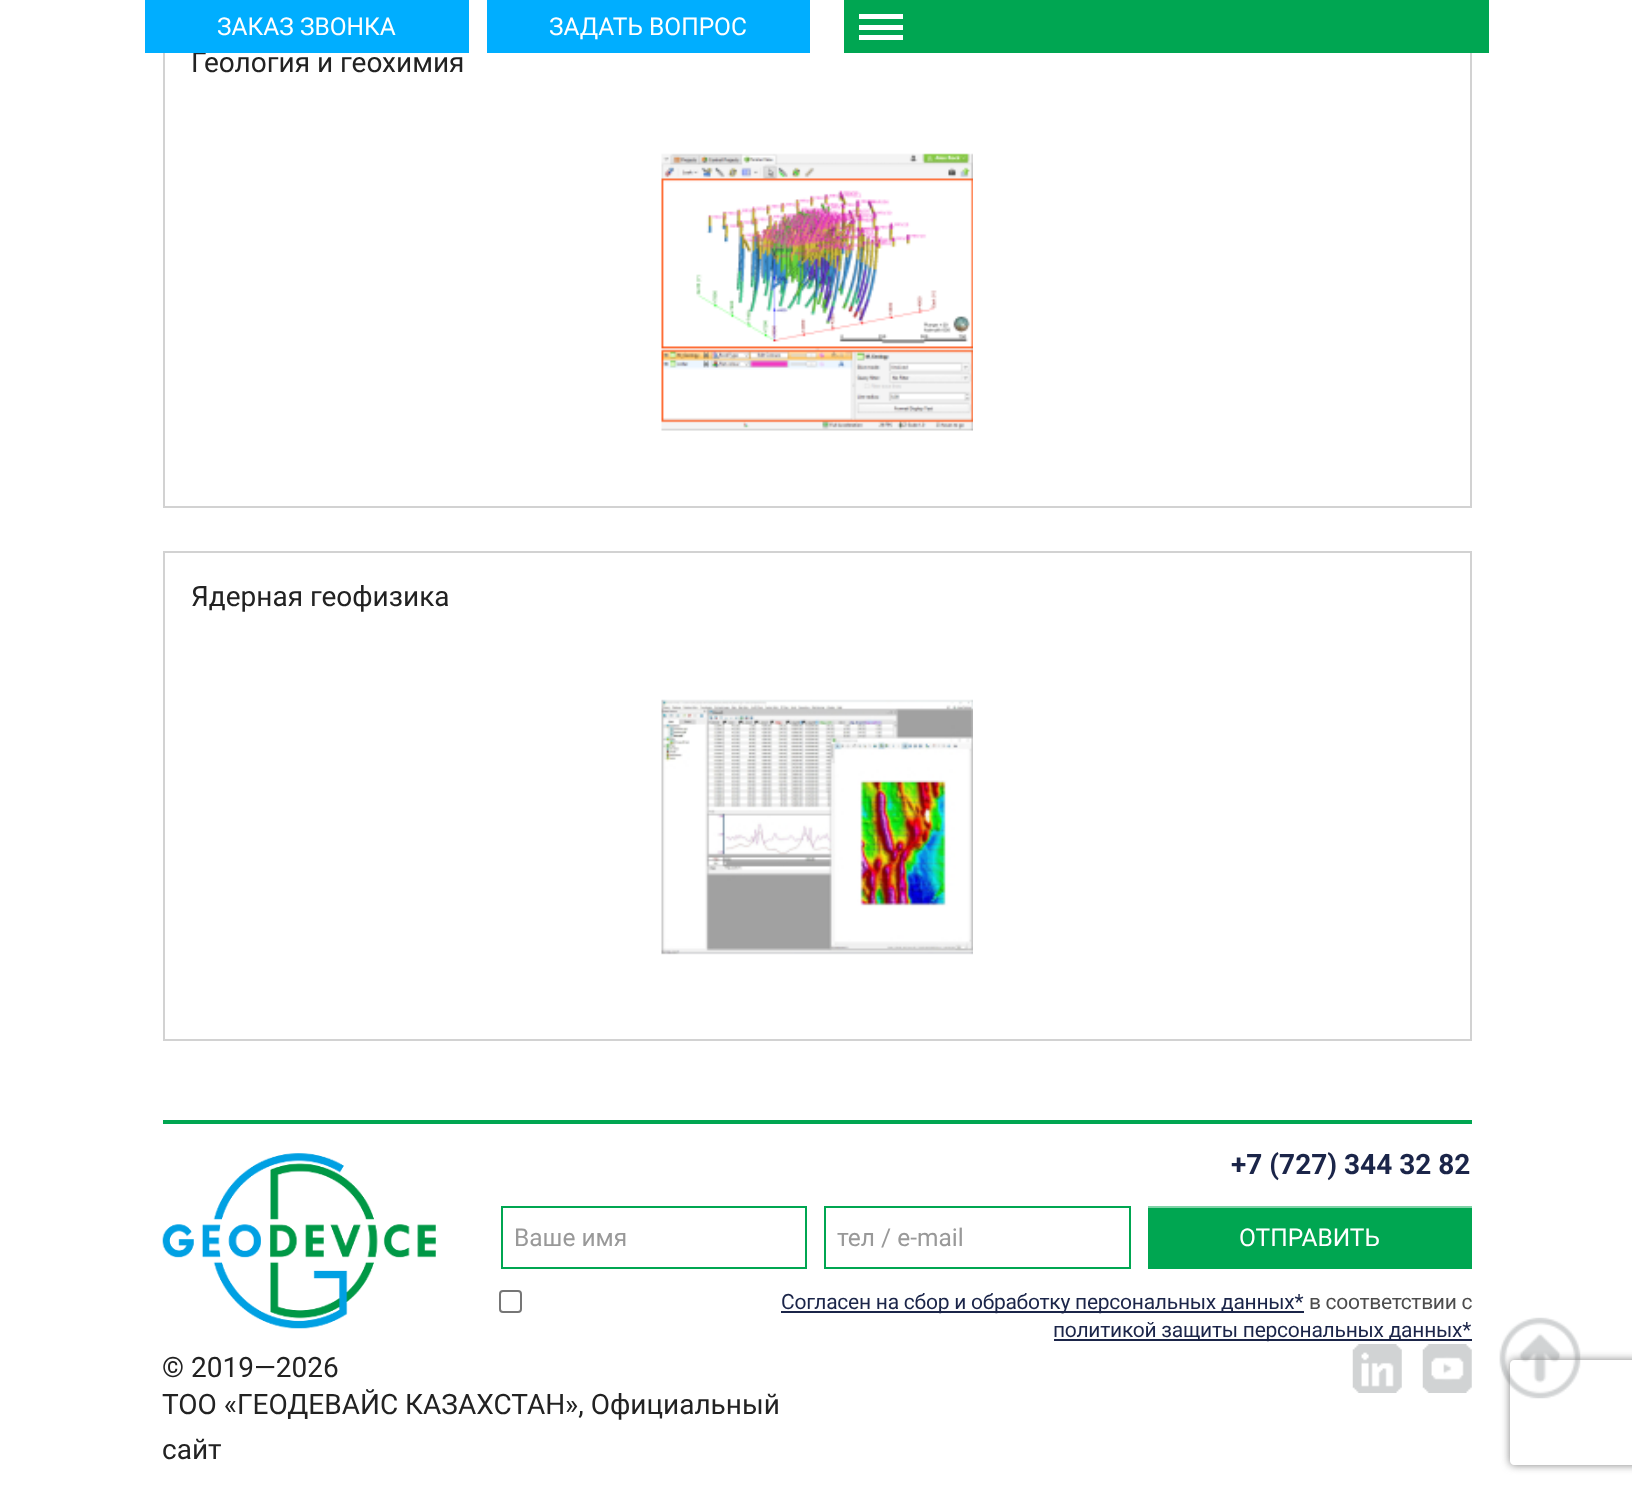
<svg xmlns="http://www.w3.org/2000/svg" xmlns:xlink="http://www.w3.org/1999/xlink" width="1632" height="1488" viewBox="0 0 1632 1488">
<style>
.cls-1{font:24.5px Roboto;fill:#ffffff}
.cls-2{font:28px Roboto;fill:#222222}
.cls-3{font:bold 28px Roboto;fill:#1b2549}
.cls-4{font:24.5px Roboto;fill:#999999}
.cls-5{font:21px Roboto;letter-spacing:-0.25px;fill:#1b2549}
.cls-6{font:21px Roboto;letter-spacing:-0.3px;fill:#4d4d4d}
</style>
<defs>
<clipPath id="clip1"><path d="M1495 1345H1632V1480H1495ZM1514 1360H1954C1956 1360 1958 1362 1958 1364V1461C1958 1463 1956 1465 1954 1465H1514C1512 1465 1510 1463 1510 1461V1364C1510 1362 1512 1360 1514 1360Z" clip-rule="evenodd"/></clipPath>
</defs>
<rect width="100%" height="100%" fill="#ffffff"/>
<rect fill="none" stroke="#d2d2d2" stroke-width="2" x="164" y="19" width="1307" height="488"/>
<rect fill="#ffffff" x="469" y="18" width="375" height="2"/>
<rect fill="#00aeff" x="487" y="0" width="323" height="53"/>
<rect fill="#00a652" x="844" y="0" width="645" height="53"/>
<rect fill="#ffffff" x="859" y="35" width="44" height="5"/>
<rect fill="#ffffff" x="859" y="25" width="44" height="5"/>
<rect fill="#ffffff" x="859" y="14" width="44" height="5"/>
<image xlink:href="image0.png" x="661" y="153" width="312" height="278"/>
<rect fill="none" stroke="#d2d2d2" stroke-width="2" x="164" y="552" width="1307" height="488"/>
<image xlink:href="image1.png" x="661" y="699" width="312" height="256"/>
<rect fill="#00a651" x="163" y="1120" width="1309" height="4"/>
<image xlink:href="image2.png" x="162" y="1153" width="274" height="176"/>
<rect fill="none" stroke="#00a651" stroke-width="2" x="502" y="1207" width="304" height="61"/>
<rect fill="none" stroke="#00a651" stroke-width="2" x="825" y="1207" width="305" height="61"/>
<rect fill="#00a651" x="1148" y="1208" width="324" height="61"/>
<rect fill="#80d3a8" x="1148" y="1206" width="324" height="2"/>
<rect fill="none" stroke="#767676" stroke-width="2" x="500" y="1291" width="21" height="21" rx="3"/>
<rect fill="#1b2549" x="781" y="1311" width="523" height="2"/>
<rect fill="#1b2549" x="1054" y="1339" width="407" height="2"/>
<rect fill="#1b2549" x="1461" y="1339" width="11" height="2"/>
<image xlink:href="image3.png" x="1352" y="1344" width="50" height="49"/>
<image xlink:href="image4.png" x="1422" y="1344" width="50" height="49"/>
<image xlink:href="image5.png" x="1499" y="1317" width="82" height="82"/>
<g clip-path="url(#clip1)">
<rect fill="#808080" filter="blur(4.5px)" x="1510" y="1360" width="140" height="105" rx="4"/>
</g>
<text class="cls-1" x="549" y="35">ЗАДАТЬ ВОПРОС</text>
<text class="cls-2" x="191" y="72">Геология и геохимия</text>
<rect fill="#00aeff" x="145" y="0" width="324" height="53"/>
<text class="cls-1" x="217" y="35">ЗАКАЗ ЗВОНКА</text>
<text class="cls-2" x="191" y="606">Ядерная геофизика</text>
<text class="cls-3" x="1231" y="1174">+7 (727) 344 32 82</text>
<text class="cls-4" x="514" y="1246">Ваше имя</text>
<text class="cls-4" x="837" y="1246">тел / e-mail</text>
<text class="cls-1" x="1239" y="1246">ОТПРАВИТЬ</text>
<text class="cls-5" x="781" y="1309">Согласен на сбор и обработку персональных данных*</text>
<text class="cls-6" x="1309" y="1309">в соответствии с</text>
<text class="cls-5" x="1053" y="1337">политикой защиты персональных данных*</text>
<text class="cls-2"><tspan x="162" y="1377">© 2019—2026</tspan><tspan x="162" y="1414">ТОО «ГЕОДЕВАЙС КАЗАХСТАН», Официальный</tspan><tspan x="162" y="1459">сайт</tspan></text>
</svg>
